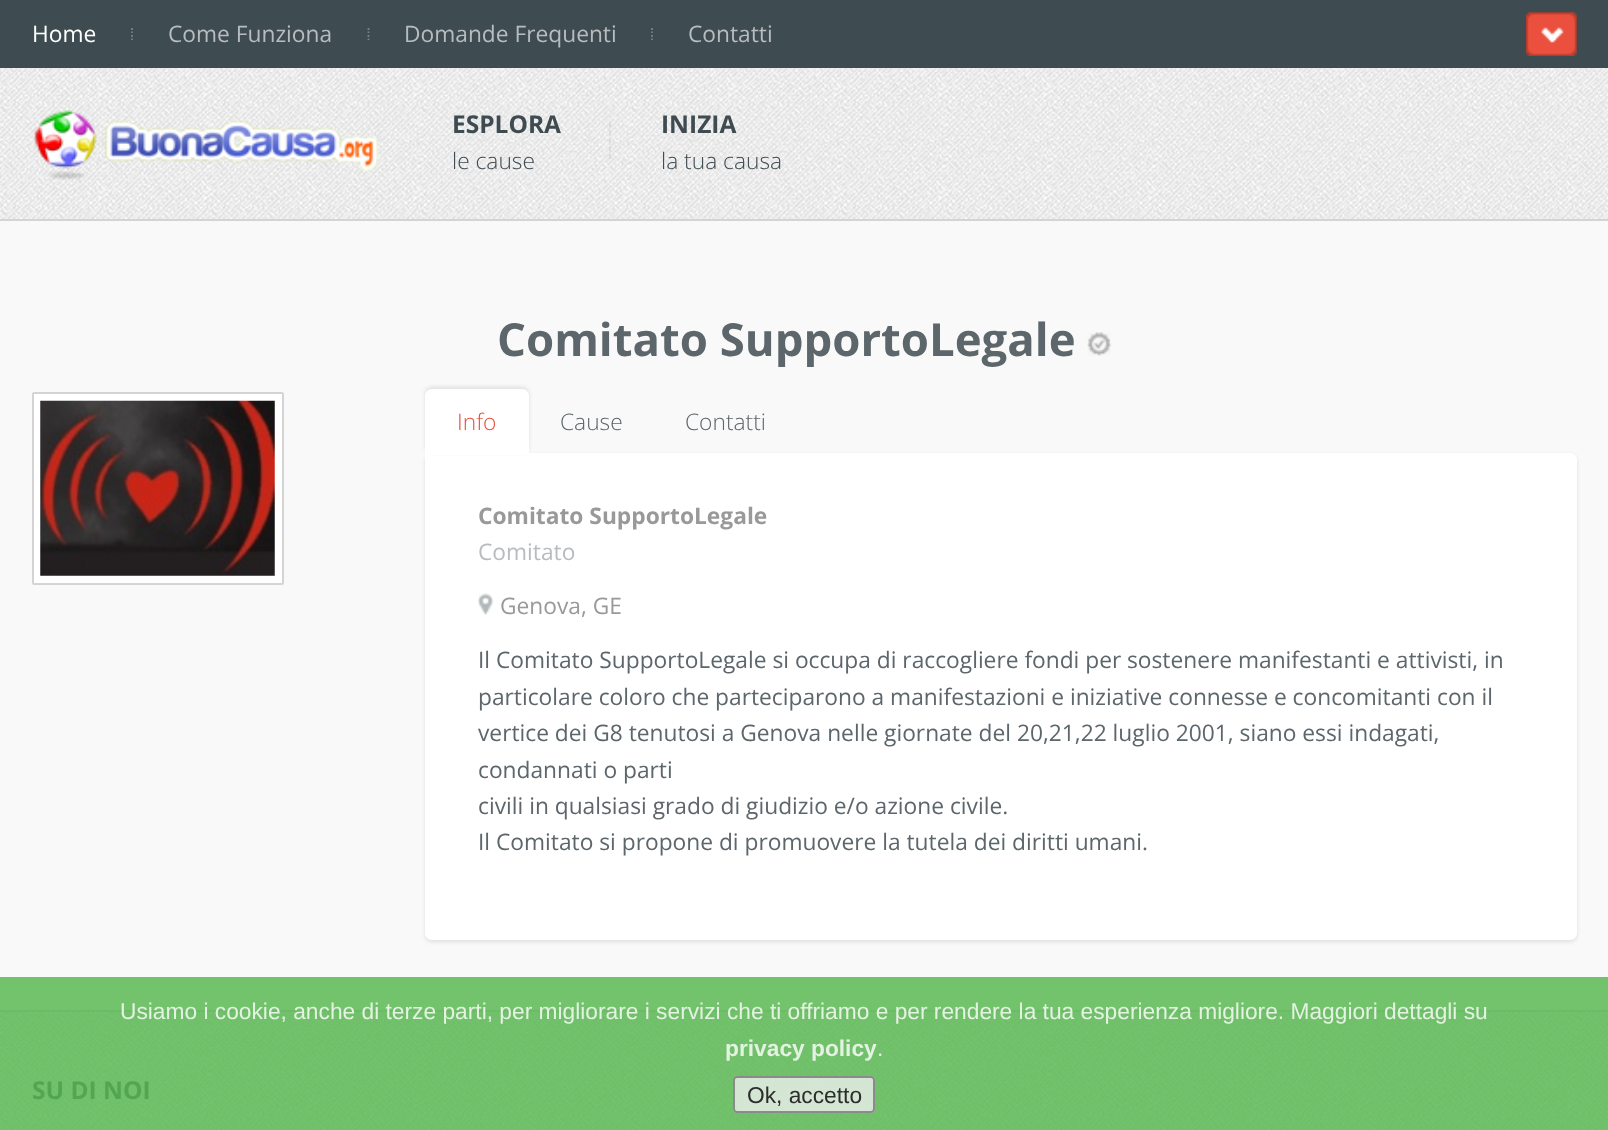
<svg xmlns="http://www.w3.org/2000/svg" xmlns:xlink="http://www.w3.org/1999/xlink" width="1608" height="1130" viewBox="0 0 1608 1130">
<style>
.cls-1{font:22.75px Open Sans;fill:#ffffff}
.cls-2{font:22.75px Open Sans;fill:#b7bcbe}
.cls-3{font:bold 24.5px Open Sans;fill:#3e4b51}
.cls-4{font:300 22.75px Open Sans;fill:#3e4b51}
.cls-5{font:bold 45.5px Open Sans;fill:#5c666b}
.cls-6{font:300 22.75px Open Sans;fill:#ea503d}
.cls-7{font:300 22.75px Open Sans;fill:#5c666b}
.cls-8{font:bold 22.75px Open Sans;fill:#999999}
.cls-9{font:22.75px Open Sans;fill:#999999}
.cls-10{font:22.75px Open Sans;fill:#5c666b}
.cls-11{font:bold 24.5px Open Sans;fill:#54a551}
.cls-12{font:22.75px Liberation Sans;fill:#e3f2e1}
.cls-13{font:bold 22.75px Liberation Sans;fill:#e3f2e1}
.cls-14{font:22.75px Liberation Sans;fill:#2b2e2a}
</style>
<rect width="100%" height="100%" fill="#f9f9f9"/>
<rect fill="#73c36d" x="0" y="977" width="1608" height="33"/>
<image xlink:href="image0.png" x="0" y="68" width="1608" height="151"/>
<rect fill="#d4d4d4" x="0" y="219" width="1608" height="2"/>
<rect fill="#3e4b51" x="0" y="0" width="1608" height="68"/>
<path fill="none" stroke="#788186" stroke-width="1.8" d="M132 28V30M132 31.5V33M132 35V37M132 38.5V40"/>
<path fill="none" stroke="#788186" stroke-width="1.8" d="M368.5 28V30M368.5 31.5V33M368.5 35V37M368.5 38.5V40"/>
<path fill="none" stroke="#788186" stroke-width="1.8" d="M652 28V30M652 31.5V33M652 35V37M652 38.5V40"/>
<image xlink:href="image1.png" x="1526" y="12" width="51" height="44"/>
<image xlink:href="image2.png" x="34" y="110" width="345" height="70"/>
<path fill="none" stroke="#d8dbdc" stroke-width="1.8" stroke-dasharray="5.25 2.62" d="M610 122.5V159"/>
<image xlink:href="image3.png" x="1087" y="332" width="25" height="24"/>
<rect fill="#ffffff" stroke="#d4d4d4" stroke-width="2" x="33" y="393" width="250" height="191" rx="1"/>
<image xlink:href="image4.png" x="40" y="400" width="235" height="176"/>
<rect fill="#000000" fill-opacity="0.1" filter="blur(2px)" x="425" y="455" width="1152" height="487" rx="7"/>
<path fill="#ffffff" d="M425 453H1570C1574 453 1577 456 1577 460V933C1577 937 1574 940 1570 940H432C428 940 425 937 425 933Z"/>
<rect fill="#000000" fill-opacity="0.1" filter="blur(2px)" x="425" y="387" width="104" height="66" rx="7"/>
<path fill="#ffffff" d="M432 389H522C526 389 529 392 529 396V455H425V396C425 392 428 389 432 389Z"/>
<image xlink:href="image5.png" x="478" y="593" width="16" height="22"/>
<image xlink:href="image6.png" x="0" y="1009" width="1608" height="121"/>
<rect fill="#6cbb66" x="0" y="1010" width="1608" height="2"/>
<rect fill="#efefef" fill-opacity="0.8" x="733" y="1076" width="142" height="37" rx="4"/>
<rect fill="none" stroke="#767676" stroke-opacity="0.8" stroke-width="2" x="734" y="1077" width="140" height="35" rx="3"/>
<text class="cls-1" x="32" y="42">Home</text>
<text class="cls-2" x="168" y="42">Come Funziona</text>
<text class="cls-2" x="404" y="42">Domande Frequenti</text>
<text class="cls-2" x="688" y="42">Contatti</text>
<text class="cls-3" x="452" y="133">ESPLORA</text>
<text class="cls-4" x="452" y="169">le cause</text>
<text class="cls-3" x="661" y="133">INIZIA</text>
<text class="cls-4" x="661" y="169">la tua causa</text>
<text class="cls-5" x="497" y="356">Comitato SupportoLegale</text>
<text class="cls-6" x="457" y="430">Info</text>
<text class="cls-7" x="560" y="430">Cause</text>
<text class="cls-7" x="685" y="430">Contatti</text>
<text class="cls-8" x="478" y="524">Comitato SupportoLegale</text>
<text class="cls-2" x="478" y="560">Comitato</text>
<text class="cls-9" x="500" y="614">Genova, GE</text>
<text class="cls-10" x="478" y="668">Il Comitato SupportoLegale si occupa di raccogliere fondi per</text>
<text class="cls-10" x="1127" y="668">sostenere manifestanti e attivisti, in</text>
<text class="cls-10"><tspan x="478" y="705">particolare coloro che parteciparono a manifestazioni e iniziative connesse e concomitanti con il</tspan><tspan x="478" y="741">vertice dei G8 tenutosi a Genova nelle giornate del 20,21,22 luglio 2001, siano essi indagati,</tspan><tspan x="478" y="778">condannati o parti</tspan><tspan x="478" y="814">civili in qualsiasi grado di giudizio e/o azione civile.</tspan><tspan x="478" y="850">Il Comitato si propone di promuovere la tutela dei diritti umani.</tspan></text>
<text class="cls-11" x="32" y="1099">SU DI NOI</text>
<text class="cls-12" x="120" y="1019">Usiamo i cookie, anche di terze parti, per migliorare i servizi che ti offriamo e per rendere la tua esperienza migliore. Maggiori dettagli su</text>
<text class="cls-13" x="725" y="1056">privacy policy</text>
<text class="cls-12" x="877" y="1056">.</text>
<text class="cls-14" x="747" y="1103">Ok, accetto</text>
</svg>
